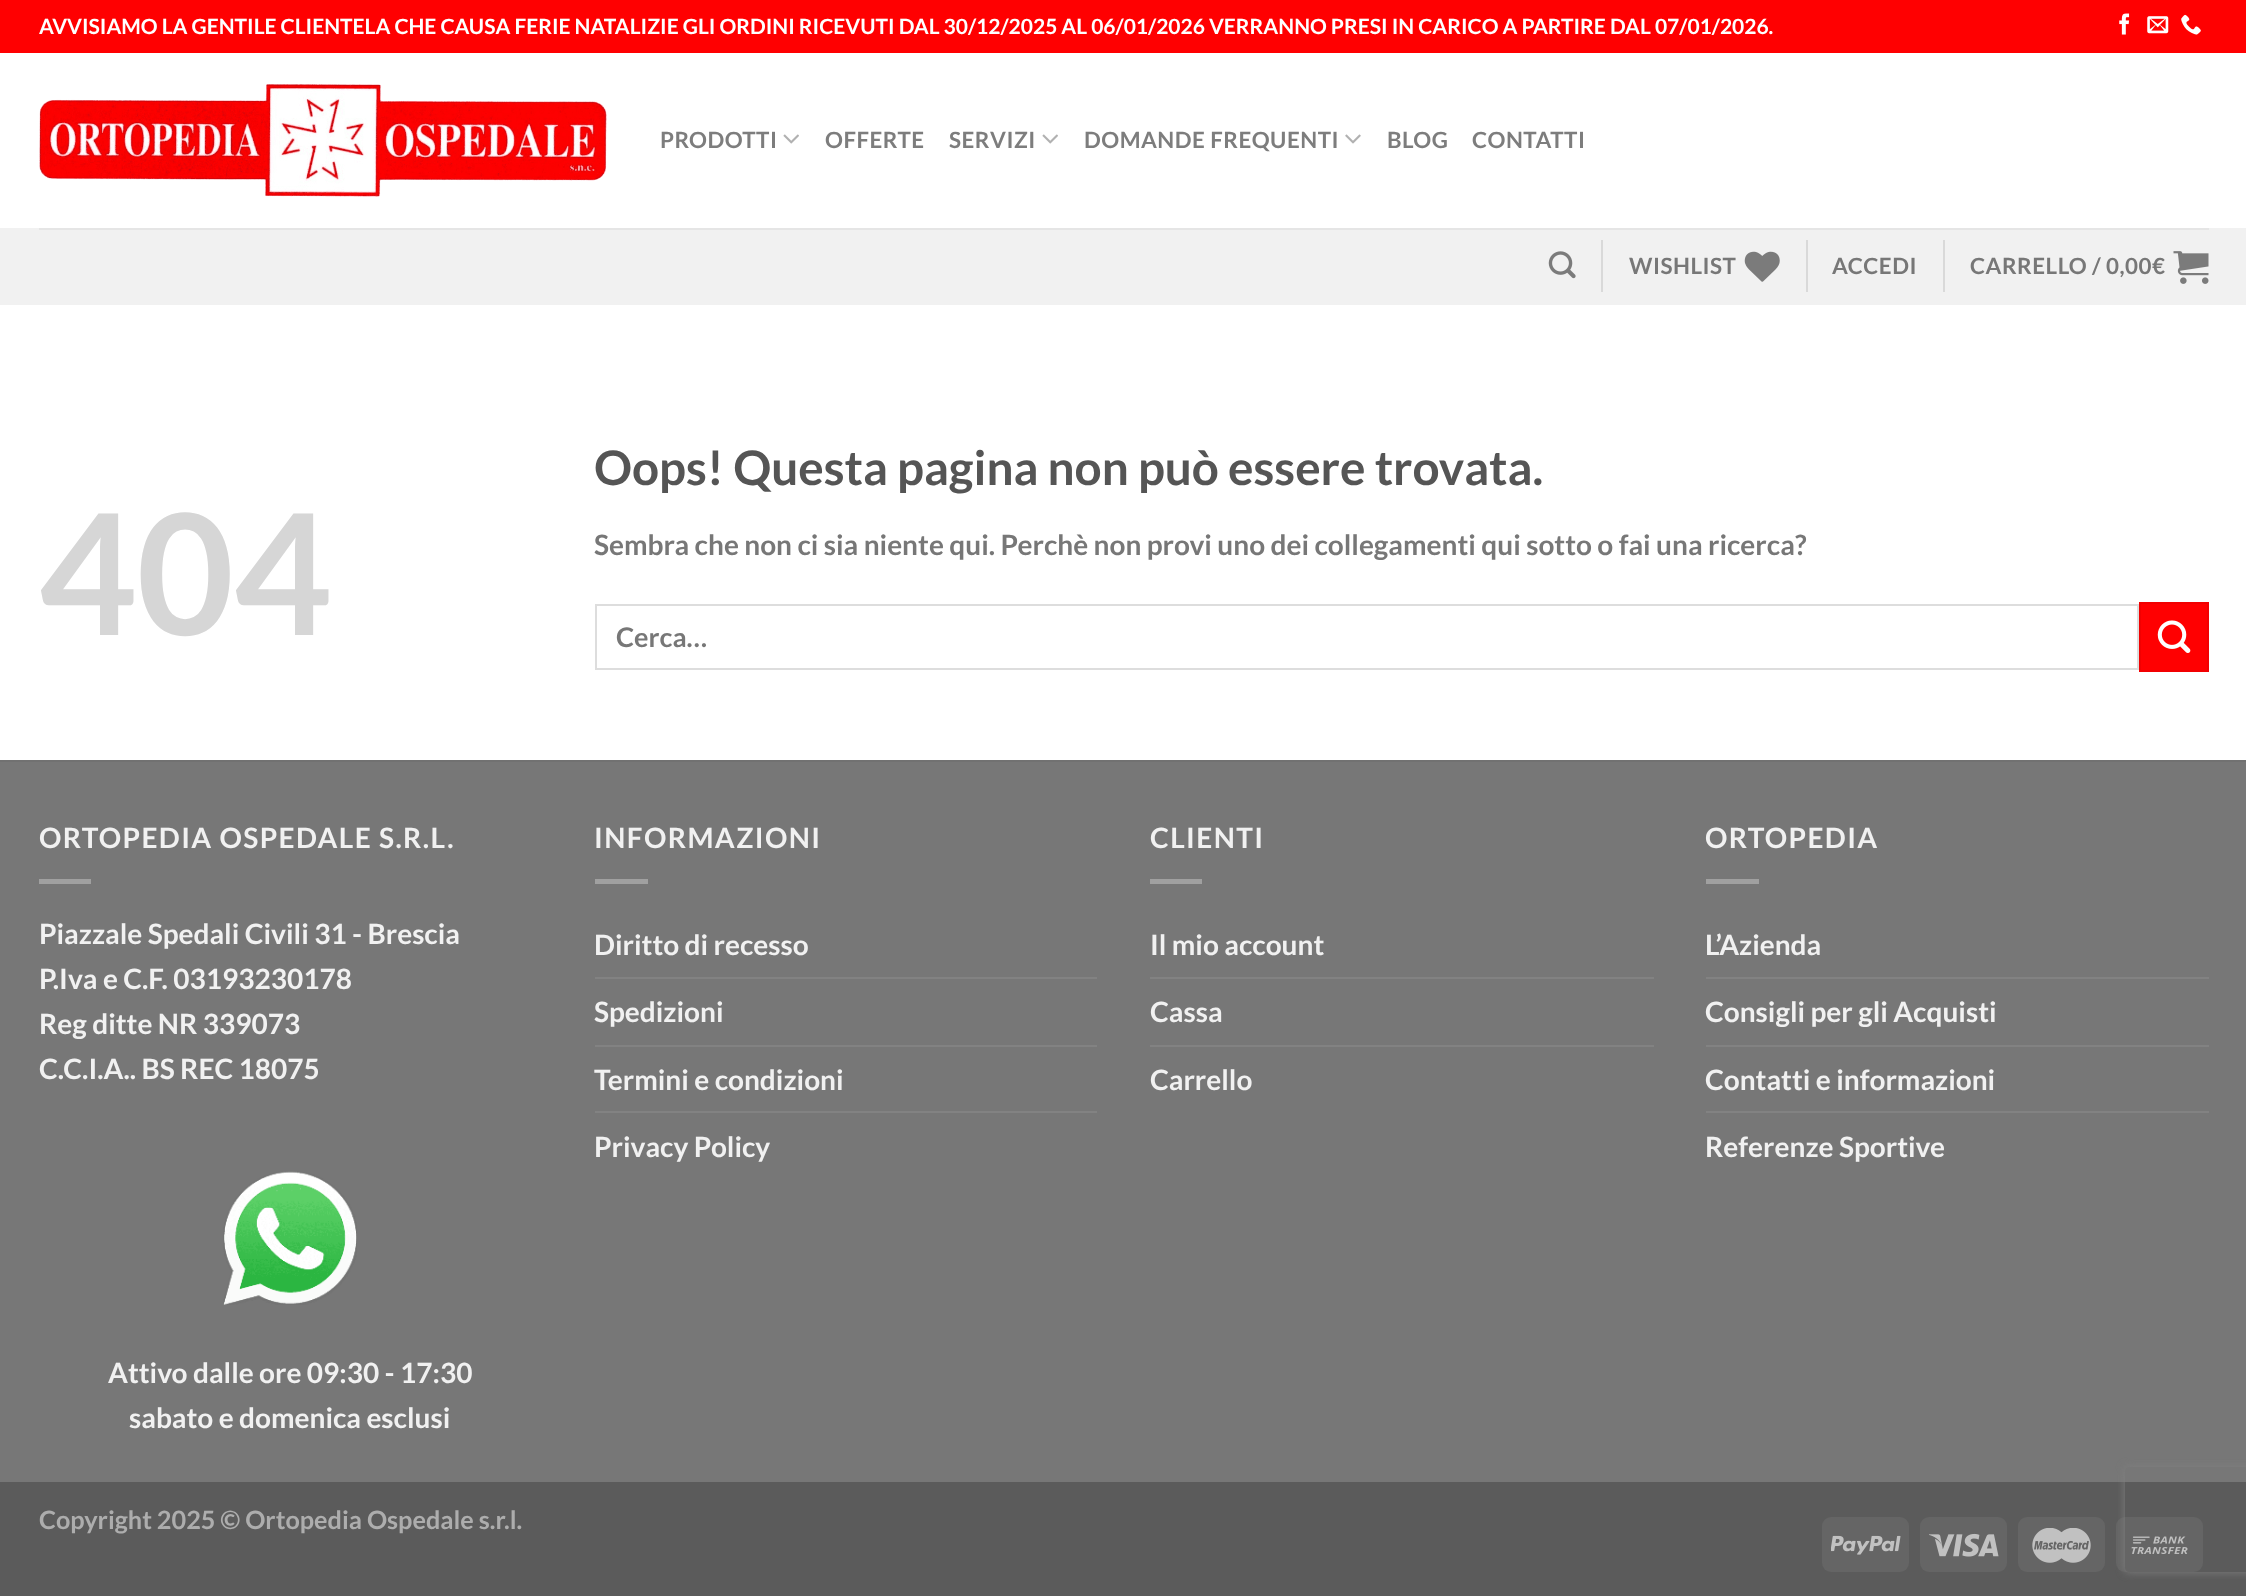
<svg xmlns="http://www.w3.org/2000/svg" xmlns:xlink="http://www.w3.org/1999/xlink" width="2246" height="1596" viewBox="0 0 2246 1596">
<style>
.cls-1{font:bold 21px Lato;fill:#ffffff}
.cls-2{font:bold 22.4px Lato;letter-spacing:0.5px;fill:#7d7d7d}
.cls-3{font:bold 22.4px Lato;letter-spacing:0.5px;fill:#777777}
.cls-4{font:bold 168px Lato;fill:#d6d6d6}
.cls-5{font:bold 47.6px Lato;fill:#555555}
.cls-6{font:bold 28px Lato;fill:#777777}
.cls-7{font:bold 27px Lato;fill:#777777}
.cls-8{font:bold 28px Lato;letter-spacing:1.4px;fill:#f1f1f1}
.cls-9{font:bold 28px Lato;fill:#f1f1f1}
.cls-10{font:bold 25.25px Lato;fill:#adadad}
</style>
<defs>
<clipPath id="clip1"><path d="M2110 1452H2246V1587H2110ZM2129 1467H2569C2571 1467 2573 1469 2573 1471V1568C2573 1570 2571 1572 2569 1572H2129C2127 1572 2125 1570 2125 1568V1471C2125 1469 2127 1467 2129 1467Z" clip-rule="evenodd"/></clipPath>
</defs>
<rect width="100%" height="100%" fill="#ffffff"/>
<rect fill="#ff0001" x="0" y="0" width="2246" height="53"/>
<image xlink:href="image0.png" x="2119" y="13" width="11" height="22"/>
<image xlink:href="image1.png" x="2147" y="16" width="22" height="18"/>
<image xlink:href="image2.png" x="2181" y="14" width="20" height="21"/>
<image xlink:href="image3.png" x="39" y="84" width="568" height="113"/>
<image xlink:href="image4.png" x="783" y="134" width="16" height="10"/>
<image xlink:href="image4.png" x="1042" y="134" width="16" height="10"/>
<image xlink:href="image5.png" x="1345" y="134" width="16" height="10"/>
<rect fill="#f1f1f1" x="0" y="228" width="2246" height="77"/>
<rect fill="#e5e5e5" x="39" y="228" width="2170" height="2"/>
<image xlink:href="image6.png" x="1548" y="251" width="28" height="28"/>
<rect fill="#d9d9d9" x="1601" y="240" width="2" height="52"/>
<image xlink:href="image7.png" x="1744" y="251" width="36" height="31"/>
<rect fill="#d9d9d9" x="1806" y="240" width="2" height="52"/>
<rect fill="#d9d9d9" x="1943" y="240" width="2" height="52"/>
<image xlink:href="image8.png" x="2173" y="251" width="36" height="33"/>
<rect fill="none" stroke="#dddddd" stroke-width="2" x="596" y="605" width="1542" height="64"/>
<rect fill="#ff0001" stroke="#f20001" stroke-width="2" x="2140" y="603" width="68" height="68"/>
<image xlink:href="image9.png" x="2157" y="620" width="34" height="33"/>
<rect fill="#777777" x="0" y="762" width="2246" height="720"/>
<rect fill="#717171" x="0" y="760" width="2246" height="2"/>
<rect fill="#a0a0a0" x="39" y="879" width="52" height="5"/>
<image xlink:href="image10.png" x="223" y="1171" width="134" height="134"/>
<rect fill="#a0a0a0" x="595" y="879" width="53" height="5"/>
<rect fill="#828282" x="595" y="977" width="502" height="2"/>
<rect fill="#828282" x="595" y="1045" width="502" height="2"/>
<rect fill="#828282" x="595" y="1111" width="502" height="2"/>
<rect fill="#a0a0a0" x="1150" y="879" width="52" height="5"/>
<rect fill="#828282" x="1150" y="977" width="504" height="2"/>
<rect fill="#828282" x="1150" y="1045" width="504" height="2"/>
<rect fill="#a0a0a0" x="1706" y="879" width="53" height="5"/>
<rect fill="#828282" x="1706" y="977" width="503" height="2"/>
<rect fill="#828282" x="1706" y="1045" width="503" height="2"/>
<rect fill="#828282" x="1706" y="1111" width="503" height="2"/>
<rect fill="#5b5b5b" x="0" y="1482" width="2246" height="114"/>
<rect fill="#656565" x="1822" y="1517" width="87" height="55" rx="9"/>
<image xlink:href="image11.png" x="1831" y="1535" width="70" height="20"/>
<rect fill="#656565" x="1920" y="1517" width="87" height="55" rx="9"/>
<image xlink:href="image12.png" x="1929" y="1533" width="70" height="24"/>
<rect fill="#656565" x="2018" y="1517" width="87" height="55" rx="9"/>
<image xlink:href="image13.png" x="2032" y="1528" width="59" height="35"/>
<rect fill="#656565" x="2116" y="1517" width="87" height="55" rx="9"/>
<image xlink:href="image14.png" x="2131" y="1536" width="57" height="18"/>
<g clip-path="url(#clip1)">
<rect fill="#808080" filter="blur(4.5px)" x="2125" y="1467" width="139" height="105" rx="4"/>
</g>
<text class="cls-1" x="39" y="34">AVVISIAMO LA GENTILE CLIENTELA CHE CAUSA FERIE NATALIZIE GLI ORDINI RICEVUTI DAL 30/12/2025 AL 06/01/2026 VERRANNO PRESI IN CARICO A PARTIRE DAL 07/01/2026.</text>
<text class="cls-2" x="660" y="148">PRODOTTI</text>
<text class="cls-2" x="825" y="148">OFFERTE</text>
<text class="cls-2" x="949" y="148">SERVIZI</text>
<text class="cls-2" x="1084" y="148">DOMANDE FREQUENTI</text>
<text class="cls-2" x="1387" y="148">BLOG</text>
<text class="cls-2" x="1472" y="148">CONTATTI</text>
<text class="cls-3" x="1629" y="274">WISHLIST</text>
<text class="cls-3" x="1832" y="274">ACCEDI</text>
<text class="cls-3" x="1970" y="274">CARRELLO / 0,00€</text>
<text class="cls-4" x="39" y="635">404</text>
<text class="cls-5" x="594" y="485">Oops! Questa pagina non può essere trovata.</text>
<text class="cls-6" x="594" y="555">Sembra che non ci sia niente qui. Perchè non provi uno dei collegamenti qui sotto o fai una ricerca?</text>
<text class="cls-7" x="616" y="647">Cerca…</text>
<text class="cls-8" x="39" y="848">ORTOPEDIA OSPEDALE S.R.L.</text>
<text class="cls-9"><tspan x="39" y="944">Piazzale Spedali Civili 31 - Brescia</tspan><tspan x="39" y="989">P.Iva e C.F. 03193230178</tspan><tspan x="39" y="1034">Reg ditte NR 339073</tspan><tspan x="39" y="1079">C.C.I.A.. BS REC 18075</tspan></text>
<text class="cls-9" x="108" y="1383">Attivo dalle ore 09:30 - 17:30</text>
<text class="cls-9" x="129" y="1428">sabato e domenica esclusi</text>
<text class="cls-8" x="594" y="848">INFORMAZIONI</text>
<text class="cls-9" x="594" y="955">Diritto di recesso</text>
<text class="cls-9" x="594" y="1022">Spedizioni</text>
<text class="cls-9" x="594" y="1090">Termini e condizioni</text>
<text class="cls-9" x="594" y="1157">Privacy Policy</text>
<text class="cls-8" x="1150" y="848">CLIENTI</text>
<text class="cls-9" x="1150" y="955">Il mio account</text>
<text class="cls-9" x="1150" y="1022">Cassa</text>
<text class="cls-9" x="1150" y="1090">Carrello</text>
<text class="cls-8" x="1705" y="848">ORTOPEDIA</text>
<text class="cls-9" x="1705" y="955">L’Azienda</text>
<text class="cls-9" x="1705" y="1022">Consigli per gli Acquisti</text>
<text class="cls-9" x="1705" y="1090">Contatti e informazioni</text>
<text class="cls-9" x="1705" y="1157">Referenze Sportive</text>
<text class="cls-10" x="39" y="1529">Copyright 2025 © Ortopedia Ospedale s.r.l.</text>
</svg>
